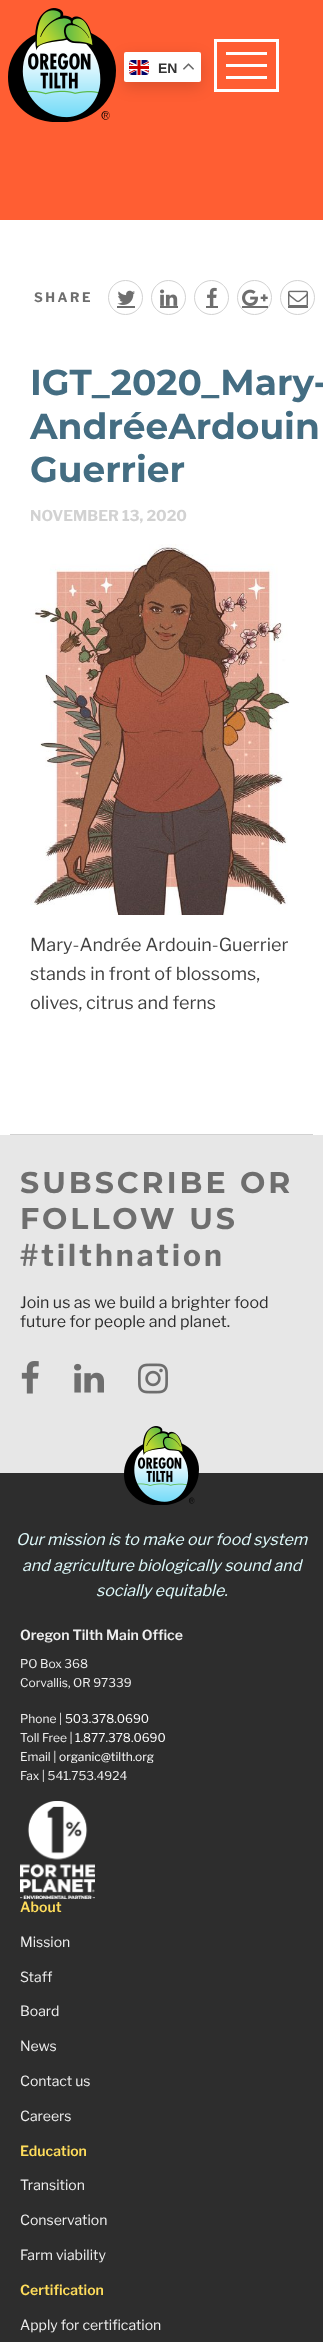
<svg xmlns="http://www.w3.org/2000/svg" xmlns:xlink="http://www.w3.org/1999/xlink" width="323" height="2342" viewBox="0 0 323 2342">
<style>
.cls-1{font:bold 14px Liberation Sans;fill:#333333}
.cls-2{font:bold 13px Libre Franklin;letter-spacing:2.5px;fill:#6e6e6e}
.cls-3{font:bold 36px Montserrat;fill:#446d82}
.cls-4{font:bold 15px Libre Franklin;fill:#d2d2d2}
.cls-5{font:18px Libre Franklin;fill:#414141}
.cls-6{font:bold 30px Montserrat;letter-spacing:3px;fill:#6e6e6e}
.cls-7{font:bold 30px Libre Franklin;letter-spacing:3px;fill:#6e6e6e}
.cls-8{font:16px Libre Franklin;fill:#2d2d2d}
.cls-9{font:italic 16px Libre Franklin;fill:#e0fbfc}
.cls-10{font:600 14px Libre Franklin;fill:#efefef}
.cls-11{font:12px Libre Franklin;fill:#efefef}
.cls-12{font:12px Libre Franklin;fill:#ffffff}
.cls-13{font:600 14px Libre Franklin;fill:#ffdd5b}
.cls-14{font:14px Libre Franklin;fill:#efefef}
</style>
<rect width="100%" height="100%" fill="#ffffff"/>
<rect fill="#ff5e33" x="0" y="0" width="323" height="220"/>
<image xlink:href="image0.png" x="8" y="8" width="108" height="114"/>
<rect fill="none" stroke="#ffffff" stroke-width="3" x="215.5" y="40.5" width="62" height="50"/>
<rect fill="#ffffff" x="226" y="76" width="41" height="3"/>
<rect fill="#ffffff" x="226" y="64" width="41" height="3"/>
<rect fill="#ffffff" x="226" y="52" width="41" height="3"/>
<rect fill="#000000" fill-opacity="0.15" filter="blur(7.5px)" x="124" y="57" width="77" height="30" rx="2"/>
<rect fill="#ffffff" x="124" y="52" width="77" height="30" rx="2"/>
<image xlink:href="image1.png" x="129" y="60" width="20" height="15"/>
<image xlink:href="image2.png" x="183" y="63" width="11" height="7"/>
<rect fill="#d2d2d2" x="10" y="1134" width="303" height="1"/>
<circle fill="none" stroke="#d2d2d2" cx="125.5" cy="297.5" r="17"/>
<image xlink:href="image3.png" x="117" y="290" width="18" height="15"/>
<rect fill="#6e6e6e" x="117" y="306" width="18" height="2"/>
<circle fill="none" stroke="#d2d2d2" cx="168.5" cy="297.5" r="17"/>
<image xlink:href="image4.png" x="160" y="289" width="18" height="17"/>
<rect fill="#6e6e6e" x="160" y="306" width="18" height="2"/>
<circle fill="none" stroke="#d2d2d2" cx="211.5" cy="297.5" r="17"/>
<image xlink:href="image5.png" x="207" y="287" width="10" height="19"/>
<rect fill="#6e6e6e" x="206" y="306" width="12" height="2"/>
<circle fill="none" stroke="#d2d2d2" cx="254.5" cy="297.5" r="17"/>
<image xlink:href="image6.png" x="242" y="289" width="26" height="17"/>
<rect fill="#6e6e6e" x="242" y="306" width="26" height="2"/>
<circle fill="none" stroke="#d2d2d2" cx="297.5" cy="297.5" r="17"/>
<image xlink:href="image7.png" x="288" y="290" width="20" height="16"/>
<rect fill="#6e6e6e" x="288" y="306" width="20" height="2"/>
<image xlink:href="image8.png" x="30" y="544" width="260" height="371"/>
<rect fill="#e7e7e7" x="0" y="1135" width="323" height="338"/>
<image xlink:href="image9.png" x="21" y="1361" width="18" height="33"/>
<image xlink:href="image10.png" x="74" y="1363" width="30" height="30"/>
<image xlink:href="image11.png" x="138" y="1363" width="30" height="31"/>
<rect fill="#2d2d2d" x="0" y="1473" width="323" height="869"/>
<image xlink:href="image12.png" x="124" y="1426" width="75" height="79"/>
<image xlink:href="image13.png" x="20" y="1801" width="75" height="98"/>
<text class="cls-1" x="158" y="73">EN</text>
<text class="cls-2" x="34" y="302">SHARE</text>
<text class="cls-3"><tspan x="30" y="395">IGT_2020_Mary-</tspan><tspan x="30" y="439">AndréeArdouin</tspan><tspan x="30" y="482">Guerrier</tspan></text>
<text class="cls-4" x="30" y="521">NOVEMBER 13, 2020</text>
<text class="cls-5"><tspan x="30" y="951">Mary-Andrée Ardouin-Guerrier</tspan><tspan x="30" y="980">stands in front of blossoms,</tspan><tspan x="30" y="1009">olives, citrus and ferns</tspan></text>
<text class="cls-6"><tspan x="20" y="1193">SUBSCRIBE OR</tspan><tspan x="20" y="1229">FOLLOW US</tspan></text>
<text class="cls-7" x="20" y="1266">#tilthnation</text>
<text class="cls-8"><tspan x="20" y="1308">Join us as we build a brighter food</tspan><tspan x="20" y="1327">future for people and planet.</tspan></text>
<text class="cls-9" x="16" y="1545">Our mission is to make our food system</text>
<text class="cls-9" x="22" y="1571">and agriculture biologically sound and</text>
<text class="cls-9" x="96" y="1596">socially equitable.</text>
<text class="cls-10" x="20" y="1640">Oregon Tilth Main Office</text>
<text class="cls-11"><tspan x="20" y="1668">PO Box 368</tspan><tspan x="20" y="1687">Corvallis, OR 97339</tspan></text>
<text class="cls-11" x="20" y="1723">Phone |</text>
<text class="cls-12" x="65" y="1723">503.378.0690</text>
<text class="cls-11" x="20" y="1742">Toll Free |</text>
<text class="cls-12" x="75" y="1742">1.877.378.0690</text>
<text class="cls-11" x="20" y="1761">Email |</text>
<text class="cls-12" x="59" y="1761">organic@tilth.org</text>
<text class="cls-11" x="20" y="1780">Fax | 541.753.4924</text>
<text class="cls-13" x="20" y="1912">About</text>
<text class="cls-14" x="20" y="1947">Mission</text>
<text class="cls-14" x="20" y="1982">Staff</text>
<text class="cls-14" x="20" y="2016">Board</text>
<text class="cls-14" x="20" y="2051">News</text>
<text class="cls-14" x="20" y="2086">Contact us</text>
<text class="cls-14" x="20" y="2121">Careers</text>
<text class="cls-13" x="20" y="2156">Education</text>
<text class="cls-14" x="20" y="2190">Transition</text>
<text class="cls-14" x="20" y="2225">Conservation</text>
<text class="cls-14" x="20" y="2260">Farm viability</text>
<text class="cls-13" x="20" y="2295">Certification</text>
<text class="cls-14" x="20" y="2330">Apply for certification</text>
</svg>
